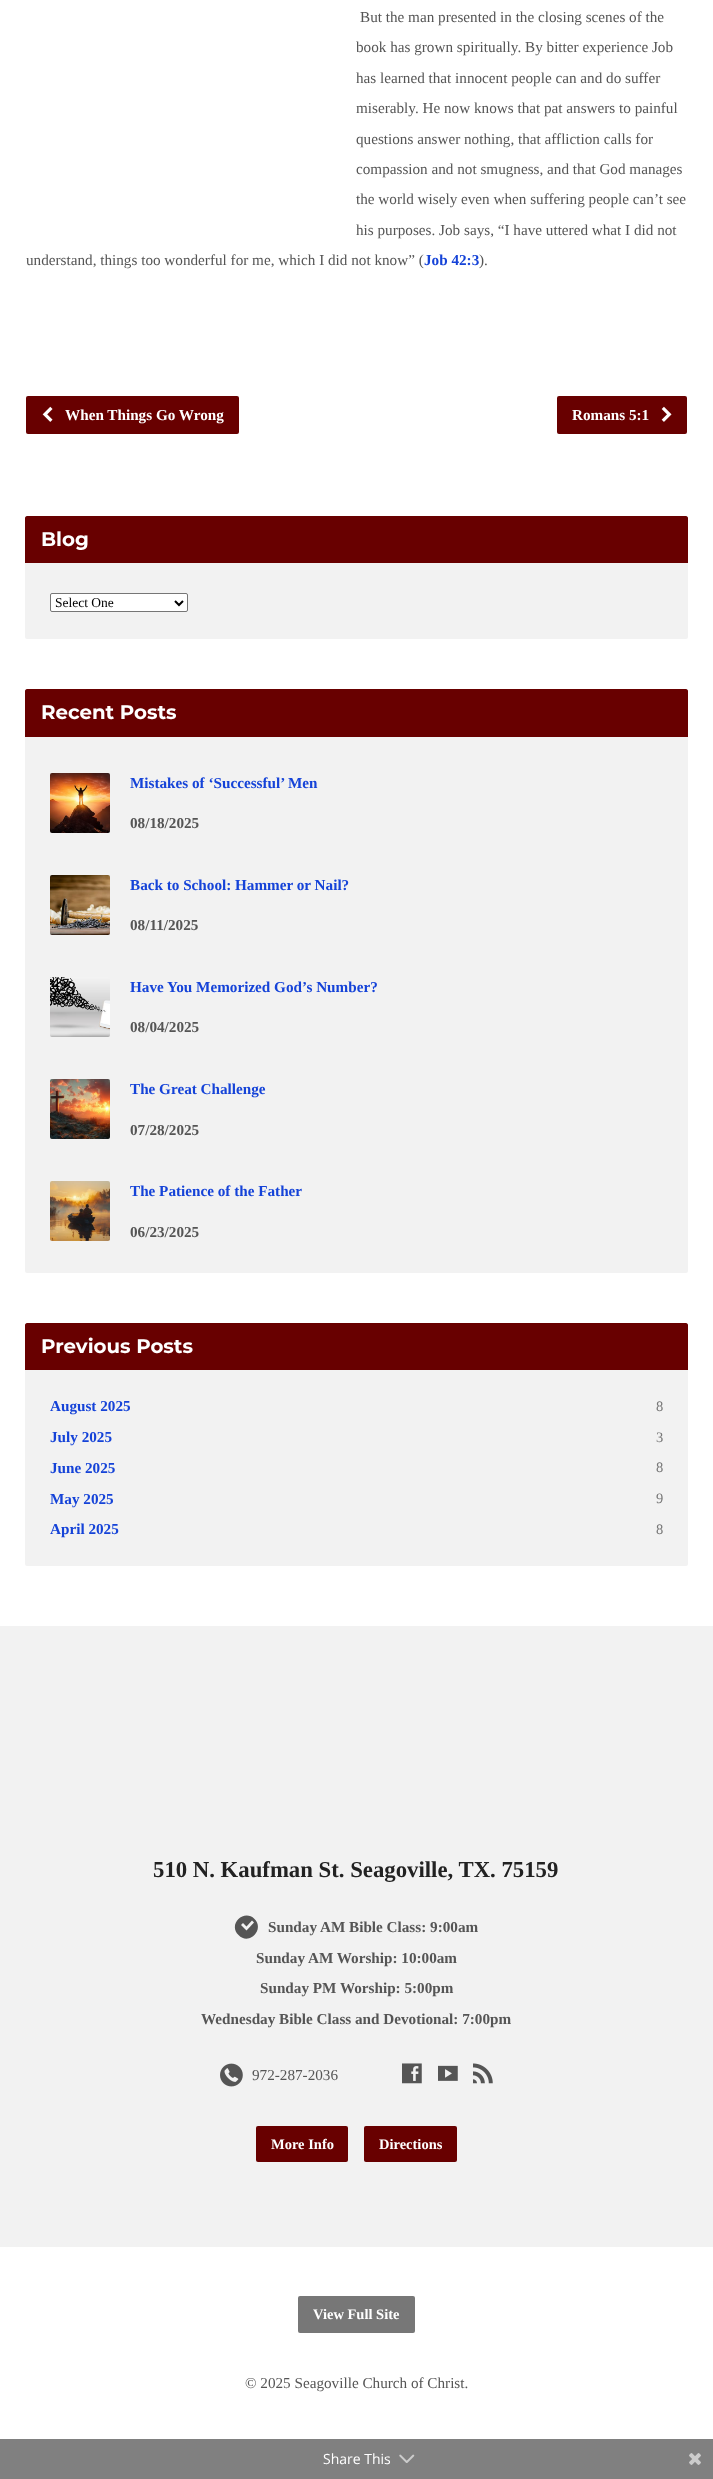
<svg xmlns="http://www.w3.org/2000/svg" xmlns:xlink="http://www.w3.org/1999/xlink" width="713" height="2479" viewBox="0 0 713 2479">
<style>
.cls-1{font:15.2px Tinos;fill:#555555}
.cls-2{font:bold 15.2px Tinos;fill:#1543d8}
.cls-3{font:bold 15.2px Tinos;fill:#ffffff}
.cls-4{font:bold 19.75px Montserrat;fill:#ffffff}
.cls-5{font:13.5px Tinos;fill:#000000}
.cls-6{font:bold 15.2px Tinos;fill:#555555}
.cls-7{font:14.5px Tinos;fill:#777777}
.cls-8{font:bold 22.75px Tinos;fill:#222222}
.cls-9{font:bold 14.5px Tinos;fill:#ffffff}
.cls-10{font:14px Open Sans;fill:#ffffff}
</style>
<rect width="100%" height="100%" fill="#ffffff"/>
<rect fill="#680000" x="26" y="396" width="213" height="38" rx="2"/>
<image xlink:href="image0.png" x="42" y="406" width="11" height="16"/>
<rect fill="#680000" x="557" y="396" width="130" height="38" rx="2"/>
<image xlink:href="image1.png" x="661" y="406" width="11" height="16"/>
<rect fill="#f2f2f2" x="25" y="516" width="663" height="123" rx="2"/>
<path fill="#680000" d="M27 516H686C687 516 688 517 688 518V563H25V518C25 517 26 516 27 516Z"/>
<rect fill="#ffffff" stroke="#767676" x="50.5" y="593.5" width="137" height="18" rx="1.5"/>
<path fill="none" stroke="#000000" stroke-width="2" d="M175 601L179 605L183 601"/>
<rect fill="#f2f2f2" x="25" y="689" width="663" height="584" rx="2"/>
<path fill="#680000" d="M27 689H686C687 689 688 690 688 691V737H25V691C25 690 26 689 27 689Z"/>
<image xlink:href="image2.png" x="50" y="773" width="60" height="60"/>
<image xlink:href="image3.png" x="50" y="875" width="60" height="60"/>
<image xlink:href="image4.png" x="50" y="977" width="60" height="60"/>
<image xlink:href="image5.png" x="50" y="1079" width="60" height="60"/>
<image xlink:href="image6.png" x="50" y="1181" width="60" height="60"/>
<rect fill="#f2f2f2" x="25" y="1323" width="663" height="243" rx="2"/>
<path fill="#680000" d="M27 1323H686C687 1323 688 1324 688 1325V1370H25V1325C25 1324 26 1323 27 1323Z"/>
<rect fill="#f2f2f2" x="0" y="1626" width="713" height="621"/>
<path fill="#555555" d="M254.5 1919C244 1908.5 227.5 1924.5 238.5 1935C249 1946 265 1929.5 254.5 1919ZM252 1920.5L254 1922.5L246.5 1930.5L241 1925L243 1923L246.5 1926.5Z"/>
<image xlink:href="image7.png" x="220" y="2063" width="23" height="24"/>
<image xlink:href="image8.png" x="402" y="2063" width="20" height="21"/>
<image xlink:href="image9.png" x="438" y="2065" width="20" height="16"/>
<image xlink:href="image10.png" x="473" y="2063" width="20" height="21"/>
<rect fill="#680000" x="256" y="2126" width="92" height="36" rx="2"/>
<rect fill="#680000" x="364" y="2126" width="93" height="36" rx="2"/>
<rect fill="#777777" x="298" y="2296" width="117" height="37" rx="2"/>
<rect fill="#808080" x="0" y="2439" width="713" height="40"/>
<image xlink:href="image11.png" x="399" y="2454" width="16" height="9"/>
<image xlink:href="image12.png" x="689" y="2453" width="12" height="12"/>
<text class="cls-1" x="360" y="22">But the man presented in the closing scenes of the</text>
<text class="cls-1" x="356" y="52">book has grown spiritually. By bitter experience Job</text>
<text class="cls-1"><tspan x="356" y="83">has learned that innocent people can and do suffer</tspan><tspan x="356" y="113">miserably. He now knows that pat answers to painful</tspan></text>
<text class="cls-1"><tspan x="356" y="144">questions answer nothing, that affliction calls for</tspan><tspan x="356" y="174">compassion and not smugness, and that God manages</tspan><tspan x="356" y="204">the world wisely even when suffering people can’t see</tspan></text>
<text class="cls-1" x="356" y="235">his purposes. Job says, “I have uttered what I did not</text>
<text class="cls-1" x="26" y="265">understand, things too wonderful for me, which I did not know” (</text>
<text class="cls-2" x="424" y="265">Job 42:3</text>
<text class="cls-1" x="479" y="265">).</text>
<text class="cls-3" x="65" y="420">When Things Go Wrong</text>
<text class="cls-3" x="572" y="420">Romans 5:1</text>
<text class="cls-4" x="41" y="546">Blog</text>
<text class="cls-5" x="55" y="607">Select One</text>
<text class="cls-4" x="41" y="719">Recent Posts</text>
<text class="cls-2" x="130" y="788">Mistakes of ‘Successful’ Men</text>
<text class="cls-6" x="130" y="828">08/18/2025</text>
<text class="cls-2" x="130" y="890">Back to School: Hammer or Nail?</text>
<text class="cls-6" x="130" y="930">08/11/2025</text>
<text class="cls-2" x="130" y="992">Have You Memorized God’s Number?</text>
<text class="cls-6" x="130" y="1032">08/04/2025</text>
<text class="cls-2" x="130" y="1094">The Great Challenge</text>
<text class="cls-6" x="130" y="1135">07/28/2025</text>
<text class="cls-2" x="130" y="1196">The Patience of the Father</text>
<text class="cls-6" x="130" y="1237">06/23/2025</text>
<text class="cls-4" x="41" y="1353">Previous Posts</text>
<text class="cls-2" x="50" y="1411">August 2025</text>
<text class="cls-7" x="656" y="1411">8</text>
<text class="cls-2" x="50" y="1442">July 2025</text>
<text class="cls-7" x="656" y="1442">3</text>
<text class="cls-2" x="50" y="1473">June 2025</text>
<text class="cls-7" x="656" y="1472">8</text>
<text class="cls-2" x="50" y="1504">May 2025</text>
<text class="cls-7" x="656" y="1503">9</text>
<text class="cls-2" x="50" y="1534">April 2025</text>
<text class="cls-7" x="656" y="1534">8</text>
<text class="cls-8" x="153" y="1877">510 N. Kaufman St. Seagoville, TX. 75159</text>
<text class="cls-6" x="268" y="1932">Sunday AM Bible Class: 9:00am</text>
<text class="cls-6" x="256" y="1963">Sunday AM Worship: 10:00am</text>
<text class="cls-6" x="260" y="1993">Sunday PM Worship: 5:00pm</text>
<text class="cls-6" x="201" y="2024">Wednesday Bible Class and Devotional: 7:00pm</text>
<text class="cls-1" x="252" y="2080">972-287-2036</text>
<text class="cls-9" x="271" y="2149">More Info</text>
<text class="cls-9" x="379" y="2149">Directions</text>
<text class="cls-9" x="313" y="2319">View Full Site</text>
<text class="cls-1" x="245" y="2388">© 2025 Seagoville Church of Christ.</text>
<text class="cls-10" x="323" y="2464">Share This</text>
</svg>
